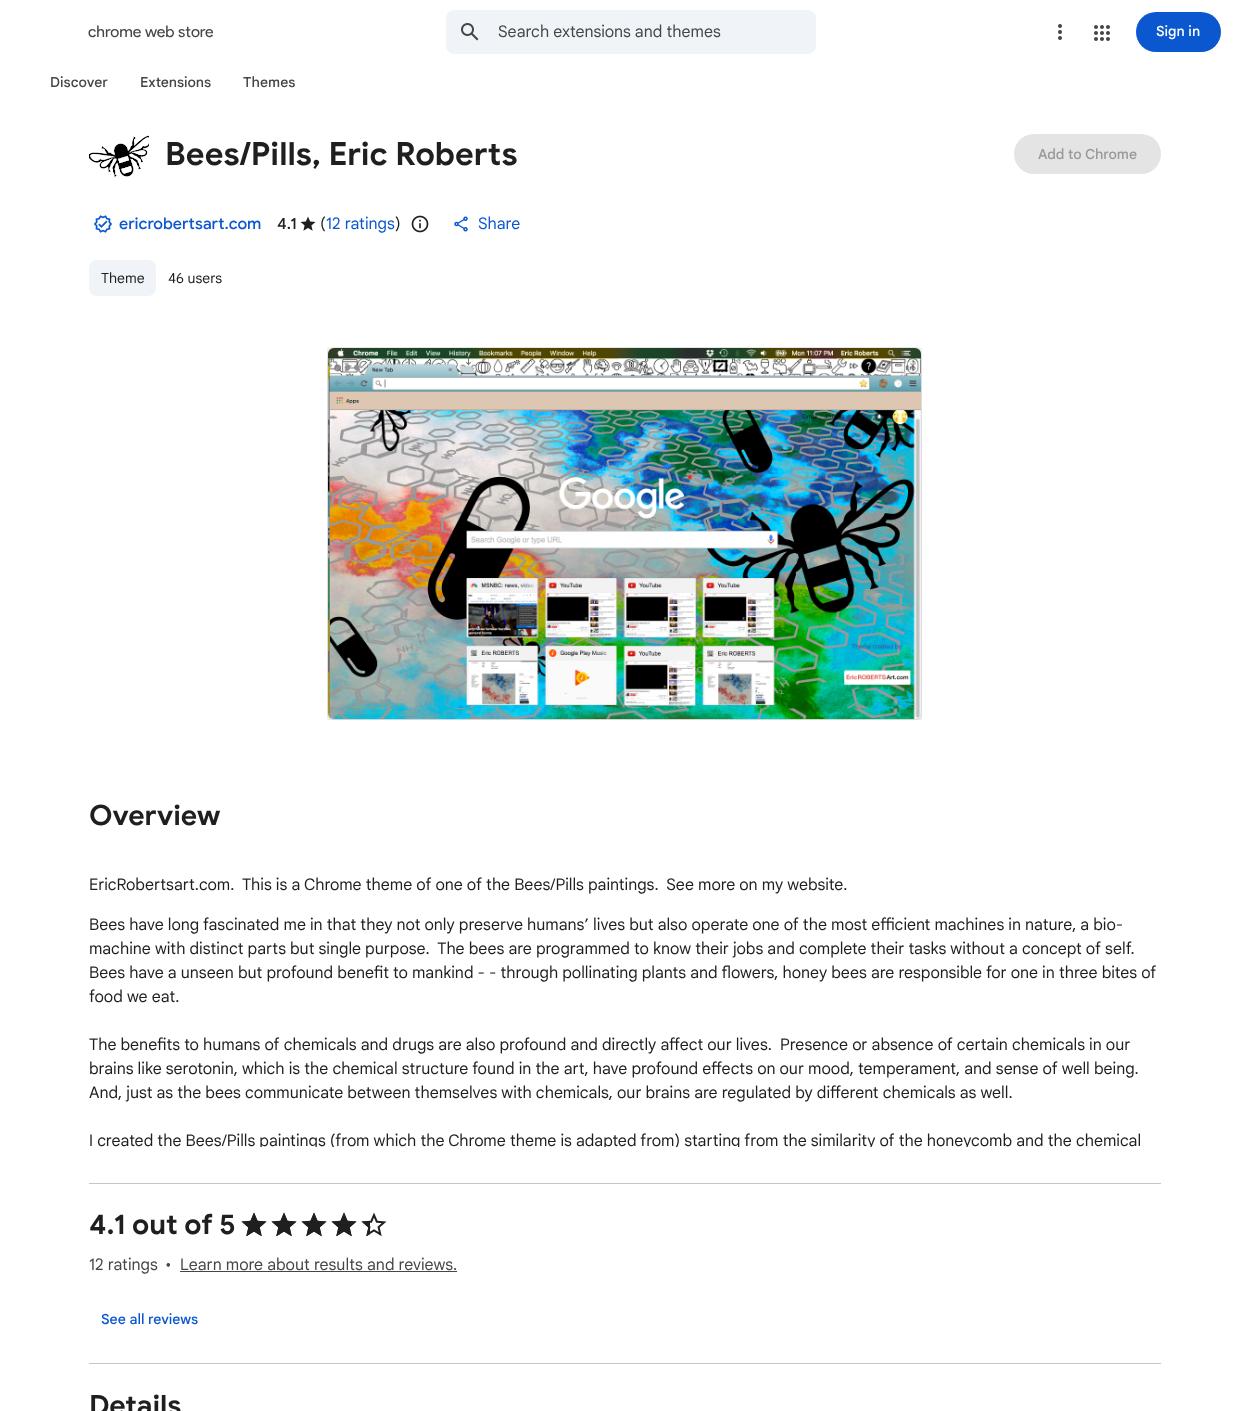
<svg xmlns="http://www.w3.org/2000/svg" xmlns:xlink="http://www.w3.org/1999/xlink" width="1240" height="1411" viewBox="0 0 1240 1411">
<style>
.cls-1{font:16px Product Sans;fill:#444746}
.cls-2{font:16px Google Sans;fill:#444746}
.cls-3{font:500 14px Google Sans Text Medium;fill:#ffffff}
.cls-4{font:500 14px Google Sans Text Medium;fill:#444746}
.cls-5{font:bold 32px Google Sans;fill:#1f1f1f}
.cls-6{font:500 14px Google Sans Text Medium;fill:#999999}
.cls-7{font:500 16px Google Sans;fill:#0b57d0}
.cls-8{font:500 16px Google Sans;fill:#1f1f1f}
.cls-9{font:16px Google Sans;fill:#1f1f1f}
.cls-10{font:16px Google Sans;fill:#0b57d0}
.cls-11{font:16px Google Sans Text;fill:#0b57d0}
.cls-12{font:14px Google Sans;fill:#1f1f1f}
.cls-13{font:bold 28px Google Sans;fill:#1f1f1f}
.cls-14{font:500 14px Google Sans Text Medium;fill:#0b57d0}
</style>
<defs>
<clipPath id="clip1"><rect x="89" y="857" width="1072" height="290"/></clipPath>
</defs>
<rect width="100%" height="100%" fill="#ffffff"/>
<image xlink:href="image0.png" x="61" y="21" width="6" height="1"/>
<rect fill="#f0f4f9" x="446" y="10" width="370" height="44" rx="8"/>
<image xlink:href="image1.png" x="461" y="23" width="18" height="18"/>
<image xlink:href="image2.png" x="1058" y="24" width="4" height="16"/>
<image xlink:href="image3.png" x="1094" y="25" width="16" height="16"/>
<rect fill="#0b57d0" x="1136" y="12" width="85" height="40" rx="20"/>
<image xlink:href="image4.png" x="89" y="135" width="60" height="42"/>
<rect fill="#e4e4e4" x="1014" y="134" width="147" height="40" rx="20"/>
<image xlink:href="image5.png" x="94" y="215" width="18" height="18"/>
<image xlink:href="image6.png" x="300" y="216" width="16" height="15"/>
<image xlink:href="image7.png" x="411" y="215" width="18" height="18"/>
<image xlink:href="image8.png" x="454" y="216" width="14" height="16"/>
<rect fill="#f0f4f9" x="89" y="260" width="67" height="36" rx="8"/>
<image xlink:href="image9.png" x="327" y="347" width="595" height="373"/>
<rect fill="#c4c7c5" x="89" y="1183" width="1072" height="1"/>
<rect fill="#c4c7c5" x="89" y="1363" width="1072" height="1"/>
<image xlink:href="image10.png" x="241" y="1212" width="26" height="25"/>
<image xlink:href="image10.png" x="271" y="1212" width="26" height="25"/>
<image xlink:href="image10.png" x="301" y="1212" width="26" height="25"/>
<image xlink:href="image10.png" x="331" y="1212" width="26" height="25"/>
<image xlink:href="image10.png" x="361" y="1212" width="26" height="25"/>
<image xlink:href="image11.png" x="241" y="1212" width="26" height="25"/>
<image xlink:href="image11.png" x="271" y="1212" width="26" height="25"/>
<image xlink:href="image11.png" x="301" y="1212" width="26" height="25"/>
<image xlink:href="image11.png" x="331" y="1212" width="26" height="25"/>
<image xlink:href="image12.png" x="361" y="1220" width="9" height="17"/>
<rect fill="#444746" x="180" y="1271" width="277" height="1"/>
<text class="cls-1" x="88" y="37">chrome web store</text>
<text class="cls-2" x="498" y="37">Search extensions and themes</text>
<text class="cls-3" x="1156" y="36">Sign in</text>
<text class="cls-4" x="50" y="87">Discover</text>
<text class="cls-4" x="140" y="87">Extensions</text>
<text class="cls-4" x="243" y="87">Themes</text>
<text class="cls-5" x="165" y="165">Bees/Pills, Eric Roberts</text>
<text class="cls-6" x="1038" y="159">Add to Chrome</text>
<text class="cls-7" x="119" y="229">ericrobertsart.com</text>
<text class="cls-8" x="277" y="229">4.1</text>
<text class="cls-9" x="320" y="229">(</text>
<text class="cls-10" x="326" y="229">12 ratings</text>
<text class="cls-9" x="395" y="229">)</text>
<text class="cls-11" x="478" y="229">Share</text>
<text class="cls-12" x="101" y="283">Theme</text>
<text class="cls-12" x="168" y="283">46 users</text>
<text class="cls-13" x="89" y="825">Overview</text>
<text class="cls-9" xml:space="preserve" x="89" y="890">EricRobertsart.com.  This is a Chrome theme of one of the Bees/Pills paintings.  See more on my website.</text>
<text class="cls-9" xml:space="preserve"><tspan x="89" y="930">Bees have long fascinated me in that they not only preserve humans’ lives but also operate one of the most efficient machines in nature, a bio-</tspan><tspan x="89" y="954">machine with distinct parts but single purpose.  The bees are programmed to know their jobs and complete their tasks without a concept of self.</tspan><tspan x="89" y="978">Bees have a unseen but profound benefit to mankind - - through pollinating plants and flowers, honey bees are responsible for one in three bites of</tspan><tspan x="89" y="1002">food we eat.</tspan></text>
<text class="cls-9" xml:space="preserve"><tspan x="89" y="1050">The benefits to humans of chemicals and drugs are also profound and directly affect our lives.  Presence or absence of certain chemicals in our</tspan><tspan x="89" y="1074">brains like serotonin, which is the chemical structure found in the art, have profound effects on our mood, temperament, and sense of well being.</tspan><tspan x="89" y="1098">And, just as the bees communicate between themselves with chemicals, our brains are regulated by different chemicals as well.</tspan></text>
<g clip-path="url(#clip1)">
<text class="cls-9" x="89" y="1146">I created the Bees/Pills paintings (from which the Chrome theme is adapted from) starting from the similarity of the honeycomb and the chemical</text>
</g>
<text class="cls-13" x="89" y="1234">4.1 out of 5</text>
<text class="cls-2" x="89" y="1270">12 ratings</text>
<text class="cls-2" x="165" y="1270">•</text>
<text class="cls-2" x="180" y="1270">Learn more about results and reviews.</text>
<text class="cls-14" x="101" y="1324">See all reviews</text>
<text class="cls-13" x="89" y="1415">Details</text>
</svg>
